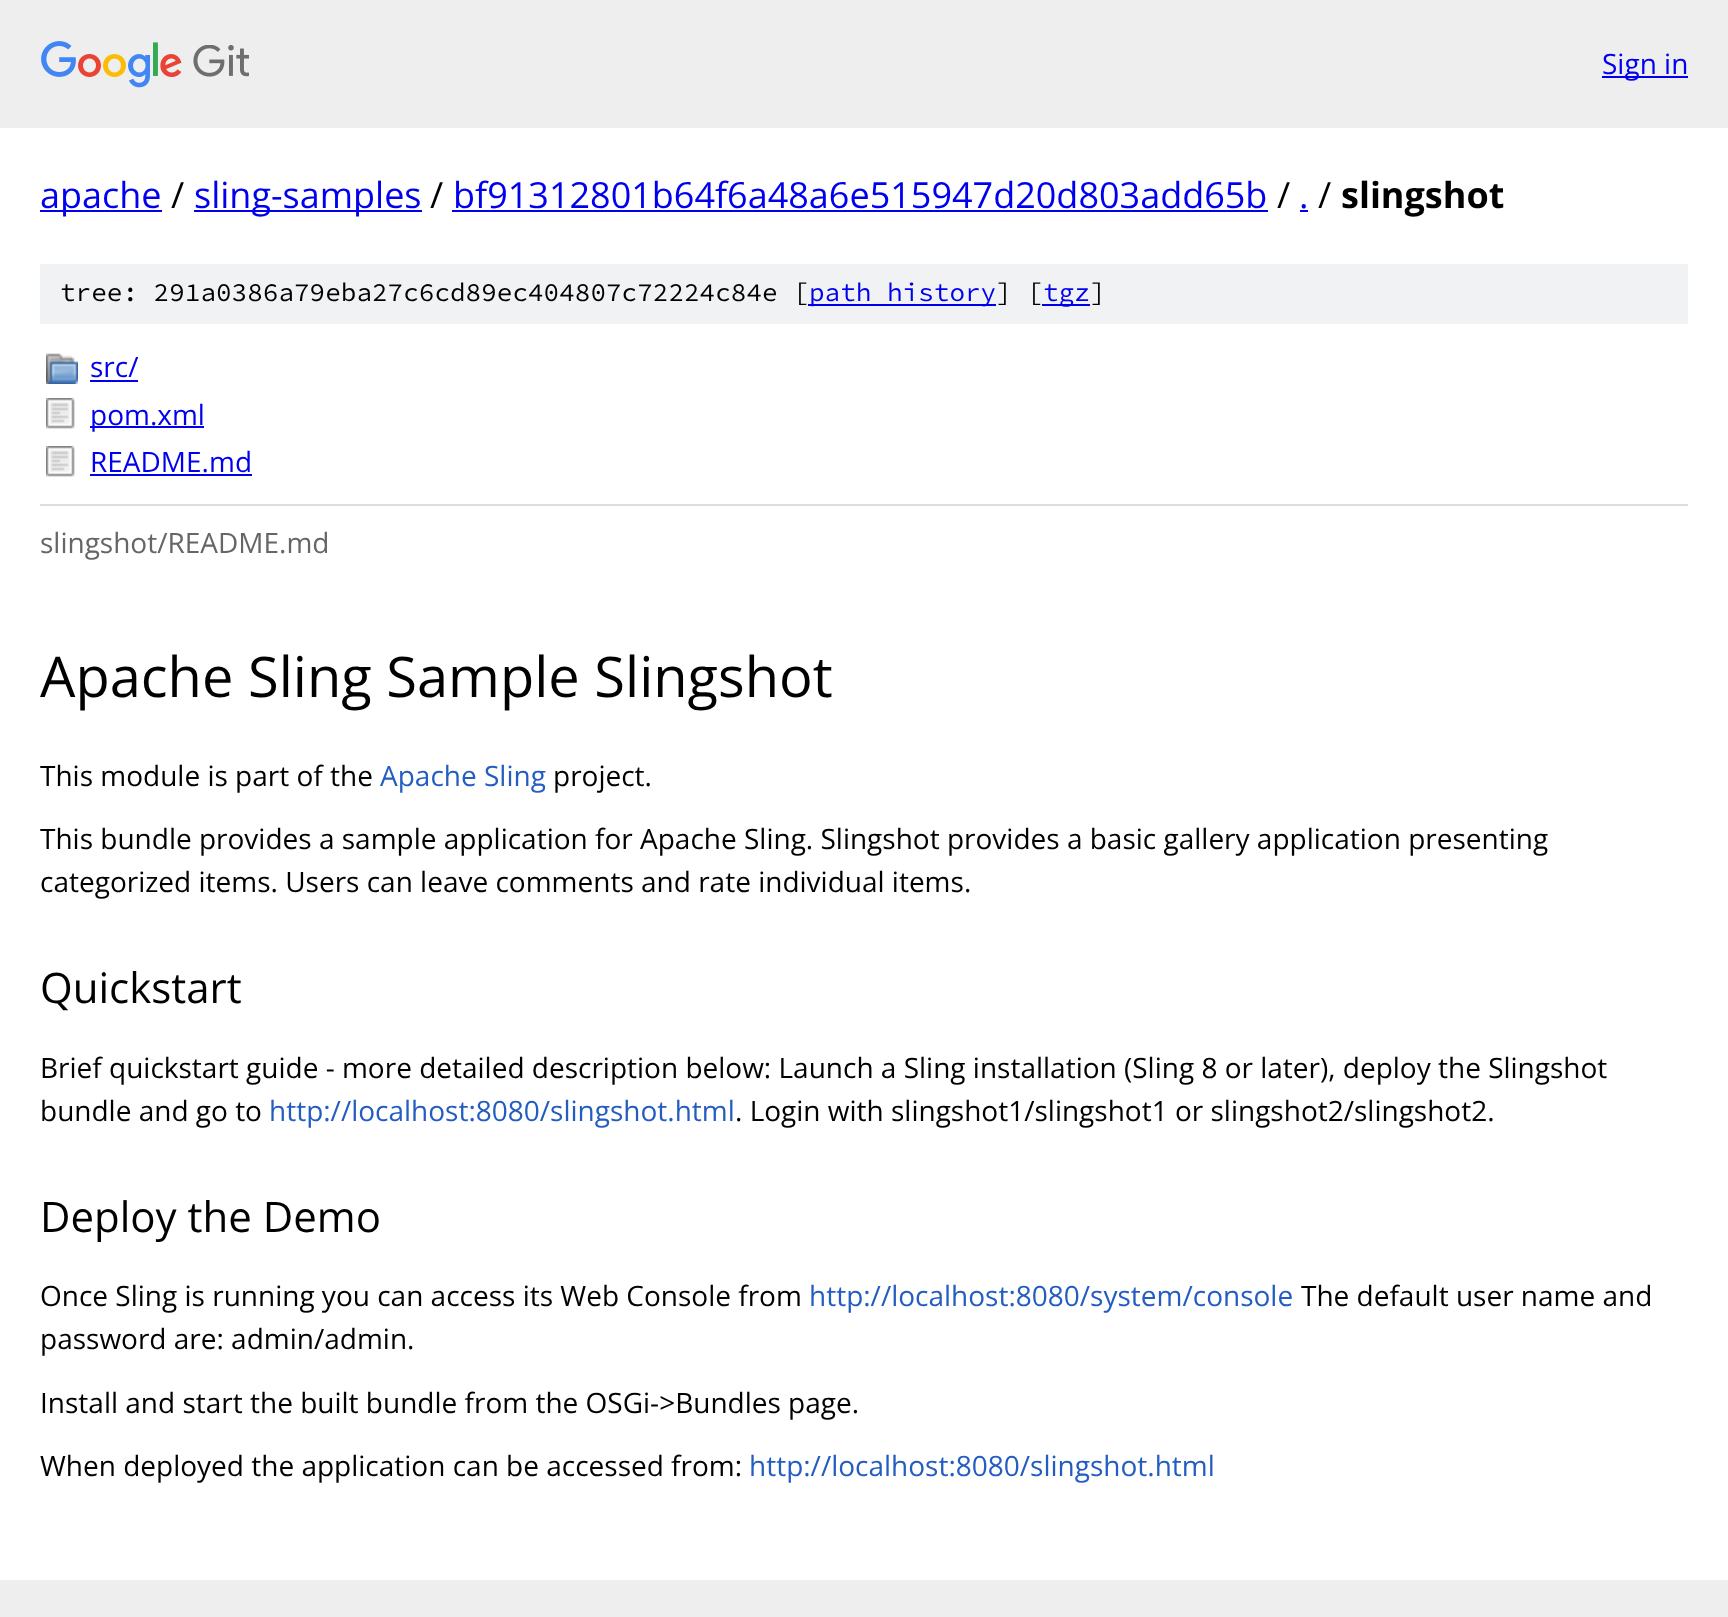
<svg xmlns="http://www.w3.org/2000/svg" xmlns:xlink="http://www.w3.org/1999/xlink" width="1728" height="1617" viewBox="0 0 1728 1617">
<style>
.cls-1{font:28px Open Sans;fill:#0000ee}
.cls-2{font:36px Open Sans;fill:#0000ee}
.cls-3{font:36px Open Sans;fill:#000000}
.cls-4{font:bold 36px Open Sans;fill:#000000}
.cls-5{font:200 26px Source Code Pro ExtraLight;fill:#000000}
.cls-6{font:200 26px Source Code Pro ExtraLight;fill:#0000ee}
.cls-7{font:28px Open Sans;fill:#666666}
.cls-8{font:56px Open Sans;fill:#000000}
.cls-9{font:28px Open Sans;fill:#000000}
.cls-10{font:28px Open Sans;fill:#245dc1}
.cls-11{font:42px Open Sans;fill:#000000}
</style>
<rect width="100%" height="100%" fill="#ffffff"/>
<rect fill="#eeeeee" x="0" y="0" width="1728" height="128"/>
<image xlink:href="image0.png" x="41" y="41" width="208" height="47"/>
<rect fill="#0000ee" x="1602" y="76" width="86" height="2"/>
<rect fill="#0000ee" x="40" y="210" width="122" height="2"/>
<rect fill="#0000ee" x="194" y="210" width="228" height="2"/>
<rect fill="#0000ee" x="452" y="210" width="816" height="2"/>
<rect fill="#0000ee" x="1300" y="210" width="8" height="2"/>
<rect fill="#f1f2f3" x="40" y="264" width="1648" height="60"/>
<rect fill="#0000ee" x="808" y="304" width="188" height="2"/>
<rect fill="#0000ee" x="1042" y="304" width="48" height="2"/>
<image xlink:href="image1.png" x="46" y="353" width="32" height="31"/>
<rect fill="#0000ee" x="90" y="380" width="48" height="2"/>
<image xlink:href="image2.png" x="46" y="398" width="29" height="31"/>
<rect fill="#0000ee" x="90" y="426" width="114" height="2"/>
<image xlink:href="image2.png" x="46" y="446" width="29" height="31"/>
<rect fill="#0000ee" x="90" y="474" width="162" height="2"/>
<rect fill="#dddddd" x="40" y="504" width="1648" height="2"/>
<rect fill="#eeeeee" x="0" y="1580" width="1728" height="37"/>
<text class="cls-1" x="1602" y="74">Sign in</text>
<text class="cls-2" x="40" y="208">apache</text>
<text class="cls-3" x="171" y="208">/</text>
<text class="cls-2" x="194" y="208">sling-samples</text>
<text class="cls-3" x="430" y="208">/</text>
<text class="cls-2" x="453" y="208">bf91312801b64f6a48a6e515947d20d803add65b</text>
<text class="cls-3" x="1277" y="208">/</text>
<text class="cls-2" x="1299" y="208">.</text>
<text class="cls-3" x="1318" y="208">/</text>
<text class="cls-4" x="1341" y="208">slingshot</text>
<text class="cls-5" x="60" y="301">tree: 291a0386a79eba27c6cd89ec404807c72224c84e [</text>
<text class="cls-6" x="809" y="301">path history</text>
<text class="cls-5" x="996" y="301">] [</text>
<text class="cls-6" x="1043" y="301">tgz</text>
<text class="cls-5" x="1090" y="301">]</text>
<text class="cls-1"><tspan x="90" y="377">src/</tspan><tspan x="90" y="425">pom.xml</tspan><tspan x="90" y="472">README.md</tspan></text>
<text class="cls-7" x="40" y="553">slingshot/README.md</text>
<text class="cls-8" x="40" y="697">Apache Sling Sample Slingshot</text>
<text class="cls-9" x="40" y="786">This module is part of the</text>
<text class="cls-10" x="380" y="786">Apache Sling</text>
<text class="cls-9" x="553" y="786">project.</text>
<text class="cls-9"><tspan x="40" y="849">This bundle provides a sample application for Apache Sling. Slingshot provides a basic gallery application presenting</tspan><tspan x="40" y="892">categorized items. Users can leave comments and rate individual items.</tspan></text>
<text class="cls-11" x="40" y="1003">Quickstart</text>
<text class="cls-9"><tspan x="40" y="1078">Brief quickstart guide - more detailed description below: Launch a Sling installation (Sling 8 or later), deploy the Slingshot</tspan><tspan x="40" y="1121">bundle and go to</tspan></text>
<text class="cls-10" x="269" y="1121">http://localhost:8080/slingshot.html</text>
<text class="cls-9" x="735" y="1121">. Login with slingshot1/slingshot1 or slingshot2/slingshot2.</text>
<text class="cls-11" x="40" y="1232">Deploy the Demo</text>
<text class="cls-9" x="40" y="1306">Once Sling is running you can access its Web Console from</text>
<text class="cls-10" x="809" y="1306">http://localhost:8080/system/console</text>
<text class="cls-9" x="1301" y="1306">The default user name and</text>
<text class="cls-9" x="40" y="1349">password are: admin/admin.</text>
<text class="cls-9" x="40" y="1413">Install and start the built bundle from the OSGi-&gt;Bundles page.</text>
<text class="cls-9" x="40" y="1476">When deployed the application can be accessed from:</text>
<text class="cls-10" x="749" y="1476">http://localhost:8080/slingshot.html</text>
</svg>
